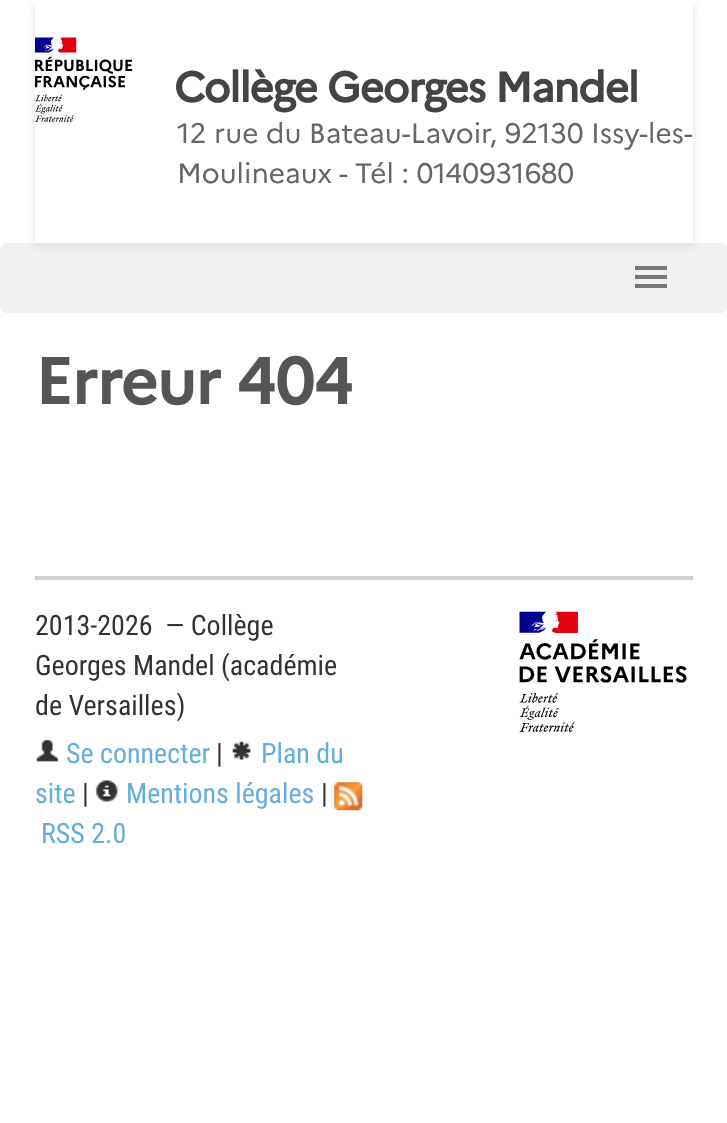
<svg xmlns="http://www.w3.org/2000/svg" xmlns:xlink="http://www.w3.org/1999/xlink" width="727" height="1123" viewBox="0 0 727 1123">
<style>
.cls-1{font:bold 42px 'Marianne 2';letter-spacing:-1.25px;fill:#444444}
.cls-2{font:28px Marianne;fill:#666666}
.cls-3{font:bold 67px Marianne;letter-spacing:-2px;fill:#555555}
.cls-4{font:28px Roboto Condensed;fill:#333333}
.cls-5{font:28px Roboto Condensed;fill:#64aedb}
</style>
<defs>
<clipPath id="clip1"><path d="M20 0H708V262H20ZM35 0H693V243H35Z" clip-rule="evenodd"/></clipPath>
</defs>
<rect width="100%" height="100%" fill="#ffffff"/>
<rect fill="#f0f0f0" x="0" y="243" width="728" height="70" rx="7"/>
<g clip-path="url(#clip1)">
<rect fill="#e0e0e0" filter="blur(4.5px)" x="35" y="4" width="658" height="243"/>
</g>
<image xlink:href="image0.png" x="35" y="37" width="97" height="85"/>
<rect fill="#777777" x="635" y="266" width="32" height="4"/>
<rect fill="#777777" x="635" y="275" width="32" height="4"/>
<rect fill="#777777" x="635" y="284" width="32" height="4"/>
<rect fill="#d0d0d0" x="35" y="576" width="658" height="4"/>
<image xlink:href="image1.png" x="232" y="741" width="19" height="19"/>
<image xlink:href="image2.png" x="36" y="739" width="23" height="23"/>
<image xlink:href="image3.png" x="95" y="780" width="23" height="22"/>
<image xlink:href="image4.png" x="334" y="782" width="29" height="29"/>
<image xlink:href="image5.png" x="519" y="611" width="168" height="121"/>
<text class="cls-1" x="174" y="102">Collège Georges Mandel</text>
<text class="cls-2"><tspan x="177" y="143">12 rue du Bateau-Lavoir, 92130 Issy-les-</tspan><tspan x="177" y="183">Moulineaux - Tél : 0140931680</tspan></text>
<text class="cls-3" x="35" y="404">Erreur 404</text>
<text class="cls-4" xml:space="preserve"><tspan x="35" y="635">2013-2026  — Collège</tspan><tspan x="35" y="675">Georges Mandel (académie</tspan><tspan x="35" y="715">de Versailles)</tspan></text>
<text class="cls-5" x="261" y="763">Plan du</text>
<text class="cls-5" x="35" y="803">site</text>
<text class="cls-5" x="66" y="763">Se connecter</text>
<text class="cls-4" x="216" y="763">|</text>
<text class="cls-4" x="82" y="803">|</text>
<text class="cls-5" x="126" y="803">Mentions légales</text>
<text class="cls-4" x="321" y="803">|</text>
<text class="cls-5" x="41" y="843">RSS 2.0</text>
</svg>
